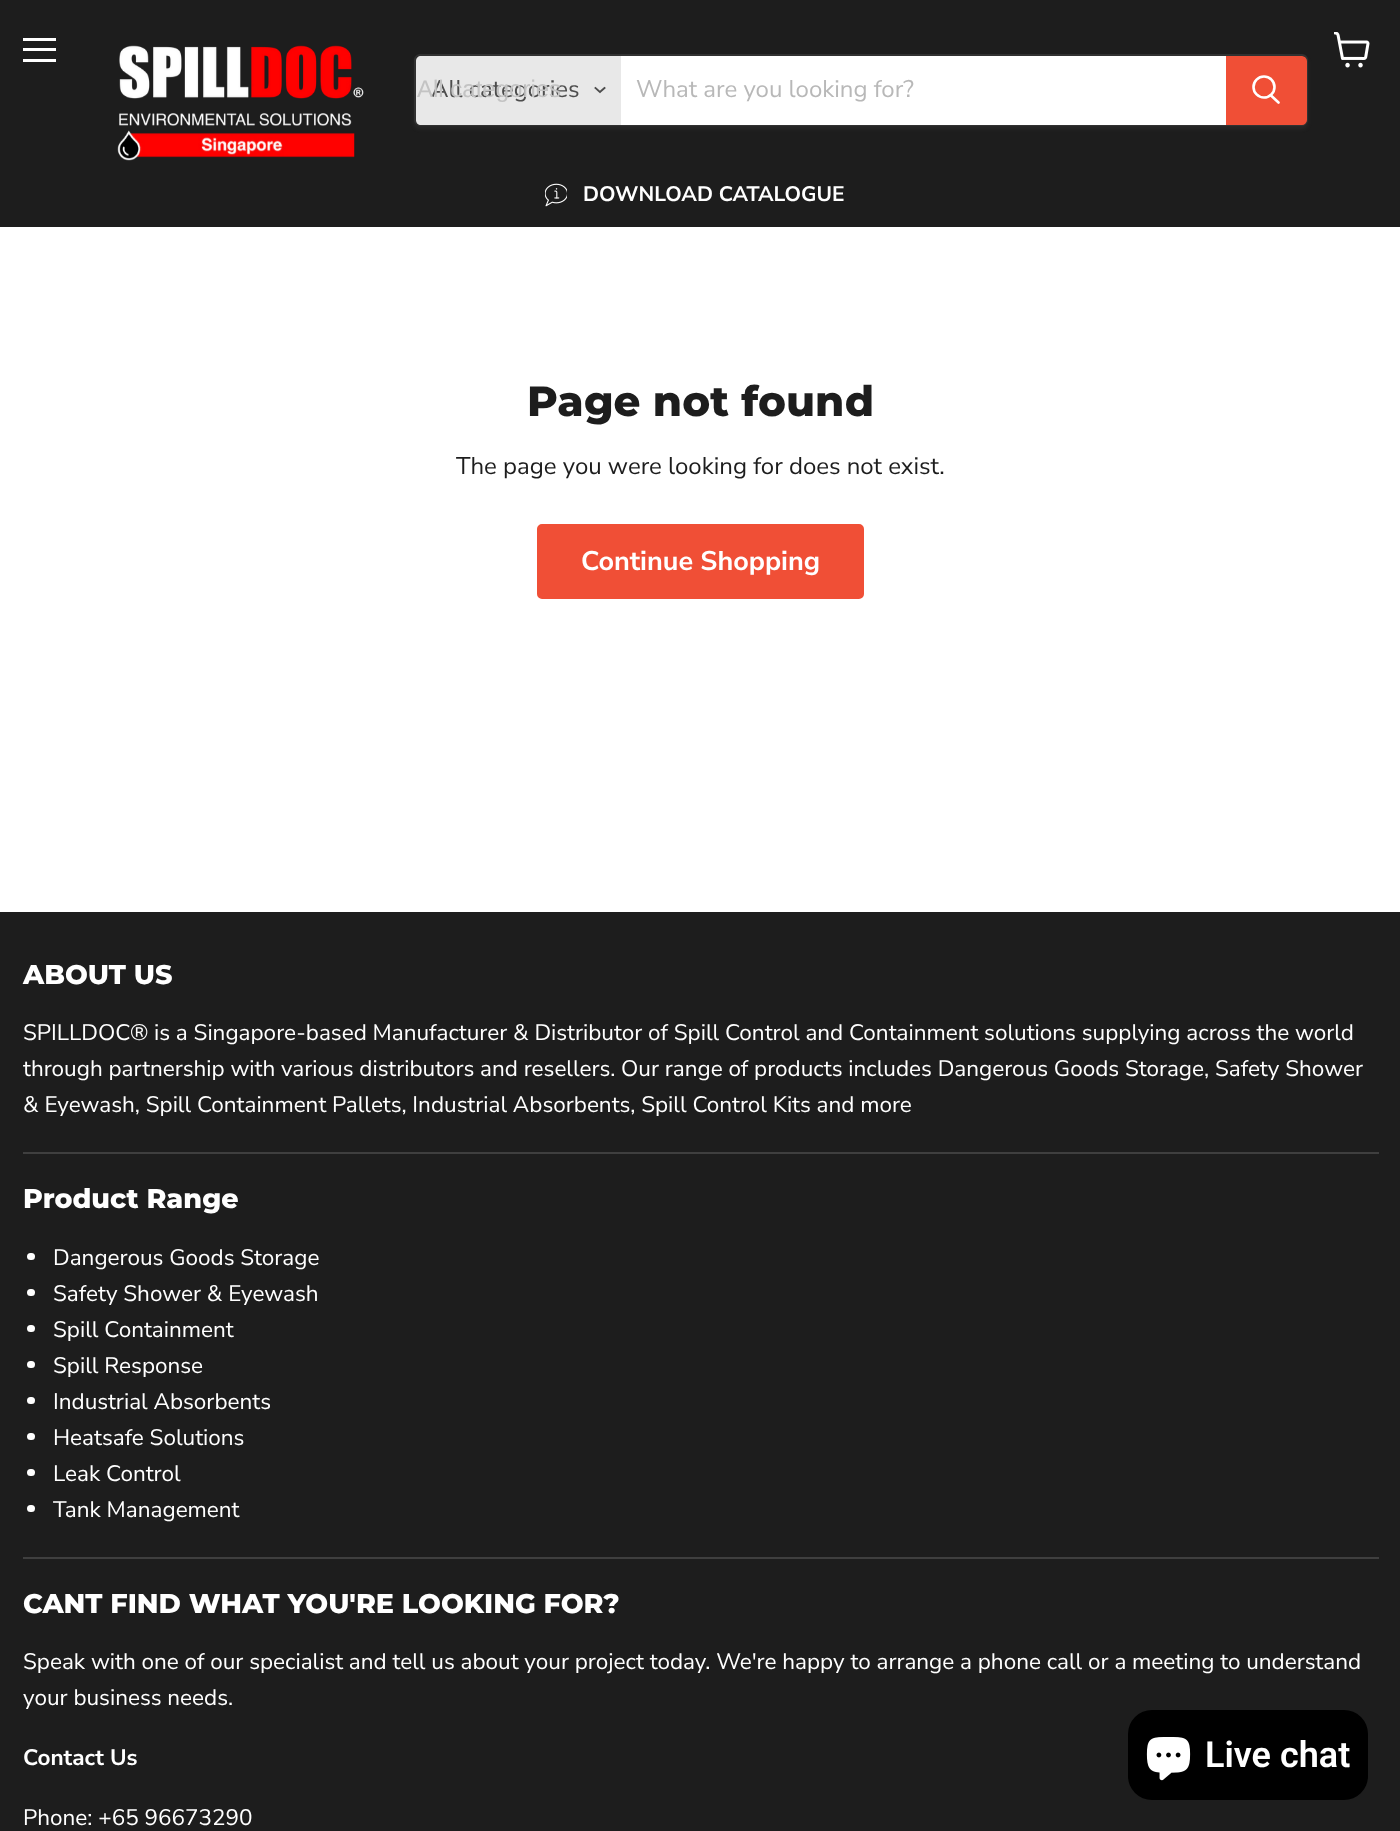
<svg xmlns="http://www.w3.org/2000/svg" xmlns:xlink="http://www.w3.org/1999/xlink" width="1400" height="1831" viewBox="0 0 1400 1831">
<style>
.cls-1{font:24px Nunito Sans;fill:#4d4d4d}
.cls-2{font:24px Liberation Sans;fill:#c3c3c3}
.cls-3{font:24px Nunito Sans;fill:#b8b8b8}
.cls-4{font:bold 21px Nunito Sans;fill:#ffffff}
.cls-5{font:800 42px Montserrat;fill:#1d1d1d}
.cls-6{font:24px Nunito Sans;fill:#1d1d1d}
.cls-7{font:bold 27px Nunito Sans;fill:#ffffff}
.cls-8{font:800 27px Montserrat;fill:#ffffff}
.cls-9{font:22.5px Nunito Sans;fill:#ffffff}
.cls-10{font:bold 22.5px Nunito Sans;fill:#ffffff}
.cls-11{font:600 36px Roboto;fill:#ffffff}
</style>
<rect width="100%" height="100%" fill="#ffffff"/>
<rect fill="#1d1d1d" x="0" y="0" width="1400" height="227"/>
<rect fill="#ffffff" x="23" y="38" width="33" height="3"/>
<rect fill="#ffffff" x="23" y="48" width="33" height="3"/>
<rect fill="#ffffff" x="23" y="59" width="33" height="3"/>
<image xlink:href="image0.png" x="1334" y="32" width="36" height="36"/>
<image xlink:href="image1.png" x="117" y="45" width="247" height="116"/>
<rect fill="#808080" fill-opacity="0.11" filter="blur(2px)" x="414" y="57" width="894" height="72" rx="6"/>
<rect fill="none" stroke="#313131" stroke-width="2" x="415" y="55" width="892" height="70" rx="5"/>
<path fill="#e8e8e8" d="M421 56H621V125H421C418 125 416 123 416 120V61C416 58 418 56 421 56Z"/>
<path fill="none" stroke="#4d4d4d" stroke-width="1.9" stroke-linecap="square" d="M600 92L604.5 88M600 92L595.5 88"/>
<rect fill="#ffffff" x="621" y="56" width="605" height="69"/>
<path fill="#f04f36" stroke="#f04f36" stroke-width="2" d="M1227 57H1302C1304 57 1306 59 1306 61V120C1306 122 1304 124 1302 124H1227Z"/>
<path fill="none" stroke="#ffffff" stroke-width="2.6" stroke-linecap="round" d="M1278.5 102.5L1271 95.5"/>
<circle fill="none" stroke="#ffffff" stroke-width="2.6" cx="1264" cy="87" r="10.5"/>
<image xlink:href="image2.png" x="545" y="183" width="22" height="24"/>
<rect fill="#f04f36" stroke="#f04f36" stroke-width="2" x="538" y="525" width="325" height="73" rx="4"/>
<rect fill="#1d1d1d" x="0" y="912" width="1400" height="919"/>
<rect fill="#3f3f3f" x="23" y="1152" width="1356" height="2"/>
<rect fill="#3f3f3f" x="23" y="1557" width="1356" height="2"/>
<rect fill="#ffffff" x="27" y="1253" width="8" height="7" rx="3.5"/>
<rect fill="#ffffff" x="27" y="1289" width="8" height="7" rx="3.5"/>
<rect fill="#ffffff" x="27" y="1325" width="8" height="7" rx="3.5"/>
<rect fill="#ffffff" x="27" y="1361" width="8" height="7" rx="3.5"/>
<rect fill="#ffffff" x="27" y="1397" width="8" height="7" rx="3.5"/>
<rect fill="#ffffff" x="27" y="1433" width="8" height="7" rx="3.5"/>
<rect fill="#ffffff" x="27" y="1469" width="8" height="7" rx="3.5"/>
<rect fill="#ffffff" x="27" y="1505" width="8" height="7" rx="3.5"/>
<rect fill="#000000" x="1128" y="1710" width="240" height="90" rx="24"/>
<image xlink:href="image3.png" x="1146" y="1737" width="45" height="44"/>
<text class="cls-1" x="431" y="97">All categories</text>
<text class="cls-2" x="417" y="97">All categories</text>
<text class="cls-3" x="636" y="97">What are you looking for?</text>
<text class="cls-4" x="583" y="201">DOWNLOAD CATALOGUE</text>
<text class="cls-5" x="527" y="416">Page not found</text>
<text class="cls-6" x="456" y="474">The page you were looking for does not exist.</text>
<text class="cls-7" x="581" y="570">Continue Shopping</text>
<text class="cls-8" x="23" y="984">ABOUT US</text>
<text class="cls-9"><tspan x="23" y="1040">SPILLDOC® is a Singapore-based Manufacturer &amp; Distributor of Spill Control and Containment solutions supplying across the world</tspan><tspan x="23" y="1076">through partnership with various distributors and resellers. Our range of products includes Dangerous Goods Storage, Safety Shower</tspan><tspan x="23" y="1112">&amp; Eyewash, Spill Containment Pallets, Industrial Absorbents, Spill Control Kits and more</tspan></text>
<text class="cls-8" x="23" y="1208">Product Range</text>
<text class="cls-9"><tspan x="53" y="1265">Dangerous Goods Storage</tspan><tspan x="53" y="1301">Safety Shower &amp; Eyewash</tspan><tspan x="53" y="1337">Spill Containment</tspan><tspan x="53" y="1373">Spill Response</tspan><tspan x="53" y="1409">Industrial Absorbents</tspan><tspan x="53" y="1445">Heatsafe Solutions</tspan><tspan x="53" y="1481">Leak Control</tspan><tspan x="53" y="1517">Tank Management</tspan></text>
<text class="cls-8" x="23" y="1613">CANT FIND WHAT YOU'RE LOOKING FOR?</text>
<text class="cls-9"><tspan x="23" y="1669">Speak with one of our specialist and tell us about your project today. We're happy to arrange a phone call or a meeting to understand</tspan><tspan x="23" y="1705">your business needs.</tspan></text>
<text class="cls-10" x="23" y="1765">Contact Us</text>
<text class="cls-9" x="23" y="1825">Phone: +65 96673290</text>
<text class="cls-11" x="1205" y="1767">Live chat</text>
</svg>
